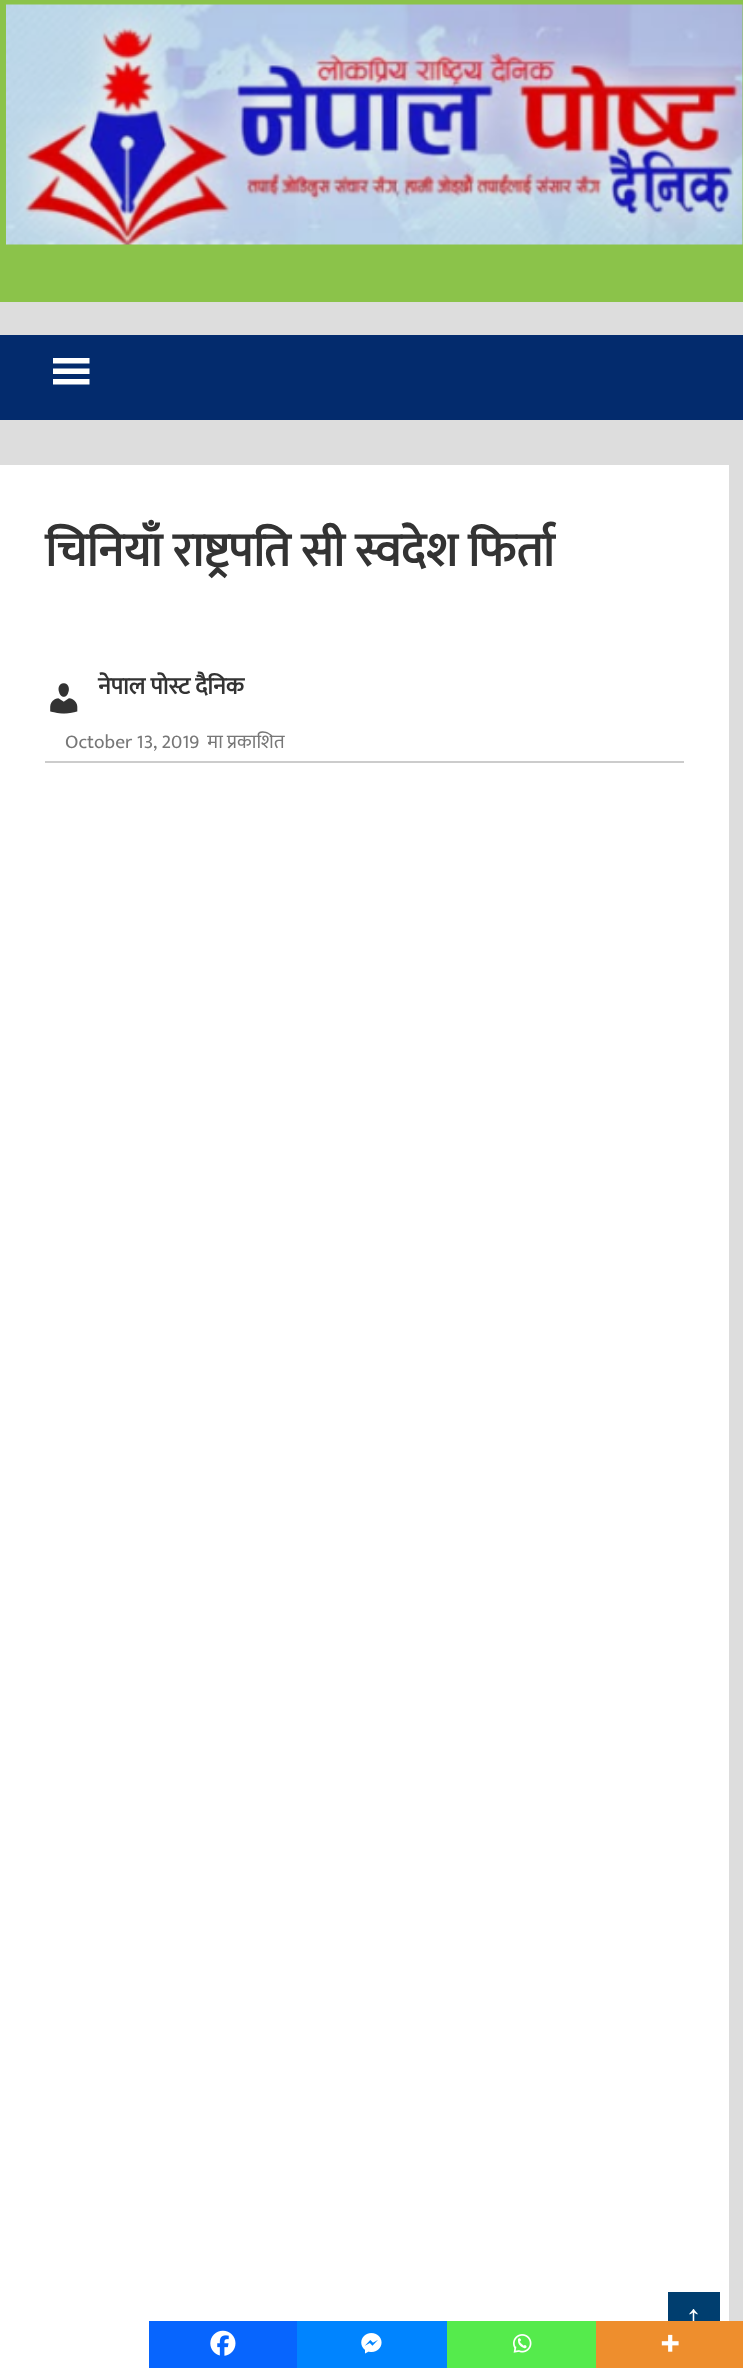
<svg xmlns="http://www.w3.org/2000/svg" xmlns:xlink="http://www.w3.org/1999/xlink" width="743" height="2368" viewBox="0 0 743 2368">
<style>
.cls-1{font:bold 48px Ek Mukta;fill:#333333}
.cls-2{font:bold 24px Ek Mukta;fill:#333333}
.cls-3{font:19.5px Ek Mukta;fill:#777777}
.cls-4{font:34px Liberation Serif;fill:#ffffff}
</style>
<rect width="100%" height="100%" fill="#dddddd"/>
<rect fill="#8bc34a" x="0" y="0" width="743" height="302"/>
<image xlink:href="image0.png" x="6" y="4" width="737" height="241"/>
<rect fill="#032b6d" x="0" y="335" width="743" height="85"/>
<path fill="#ffffff" d="M53 384.5H89.5V379H53ZM53 358V363.5H89.5V358ZM53 374H89.5V368.5H53Z"/>
<rect fill="#ffffff" x="0" y="465" width="729" height="1903"/>
<rect fill="#cccccc" x="45" y="761" width="639" height="2"/>
<image xlink:href="image1.png" x="50" y="683" width="28" height="31"/>
<rect fill="#0765fe" x="149" y="2321" width="148" height="47"/>
<image xlink:href="image2.png" x="210" y="2330" width="26" height="26"/>
<rect fill="#0084ff" x="297" y="2321" width="150" height="47"/>
<image xlink:href="image3.png" x="361" y="2333" width="21" height="21"/>
<rect fill="#55eb4c" x="447" y="2321" width="149" height="47"/>
<image xlink:href="image4.png" x="513" y="2334" width="19" height="19"/>
<rect fill="#003e6f" x="668" y="2292" width="52" height="29"/>
<text class="cls-1" x="45" y="566">चिनियाँ राष्ट्रपति सी स्वदेश फिर्ता</text>
<text class="cls-2" x="98" y="694">नेपाल पोस्ट दैनिक</text>
<text class="cls-3" xml:space="preserve" x="65" y="748">October 13, 2019  मा प्रकाशित</text>
<text class="cls-4" x="685" y="2328">↑</text>
<rect fill="#ee8e2d" x="596" y="2321" width="147" height="47"/>
<image xlink:href="image5.png" x="661" y="2334" width="18" height="18"/>
</svg>
